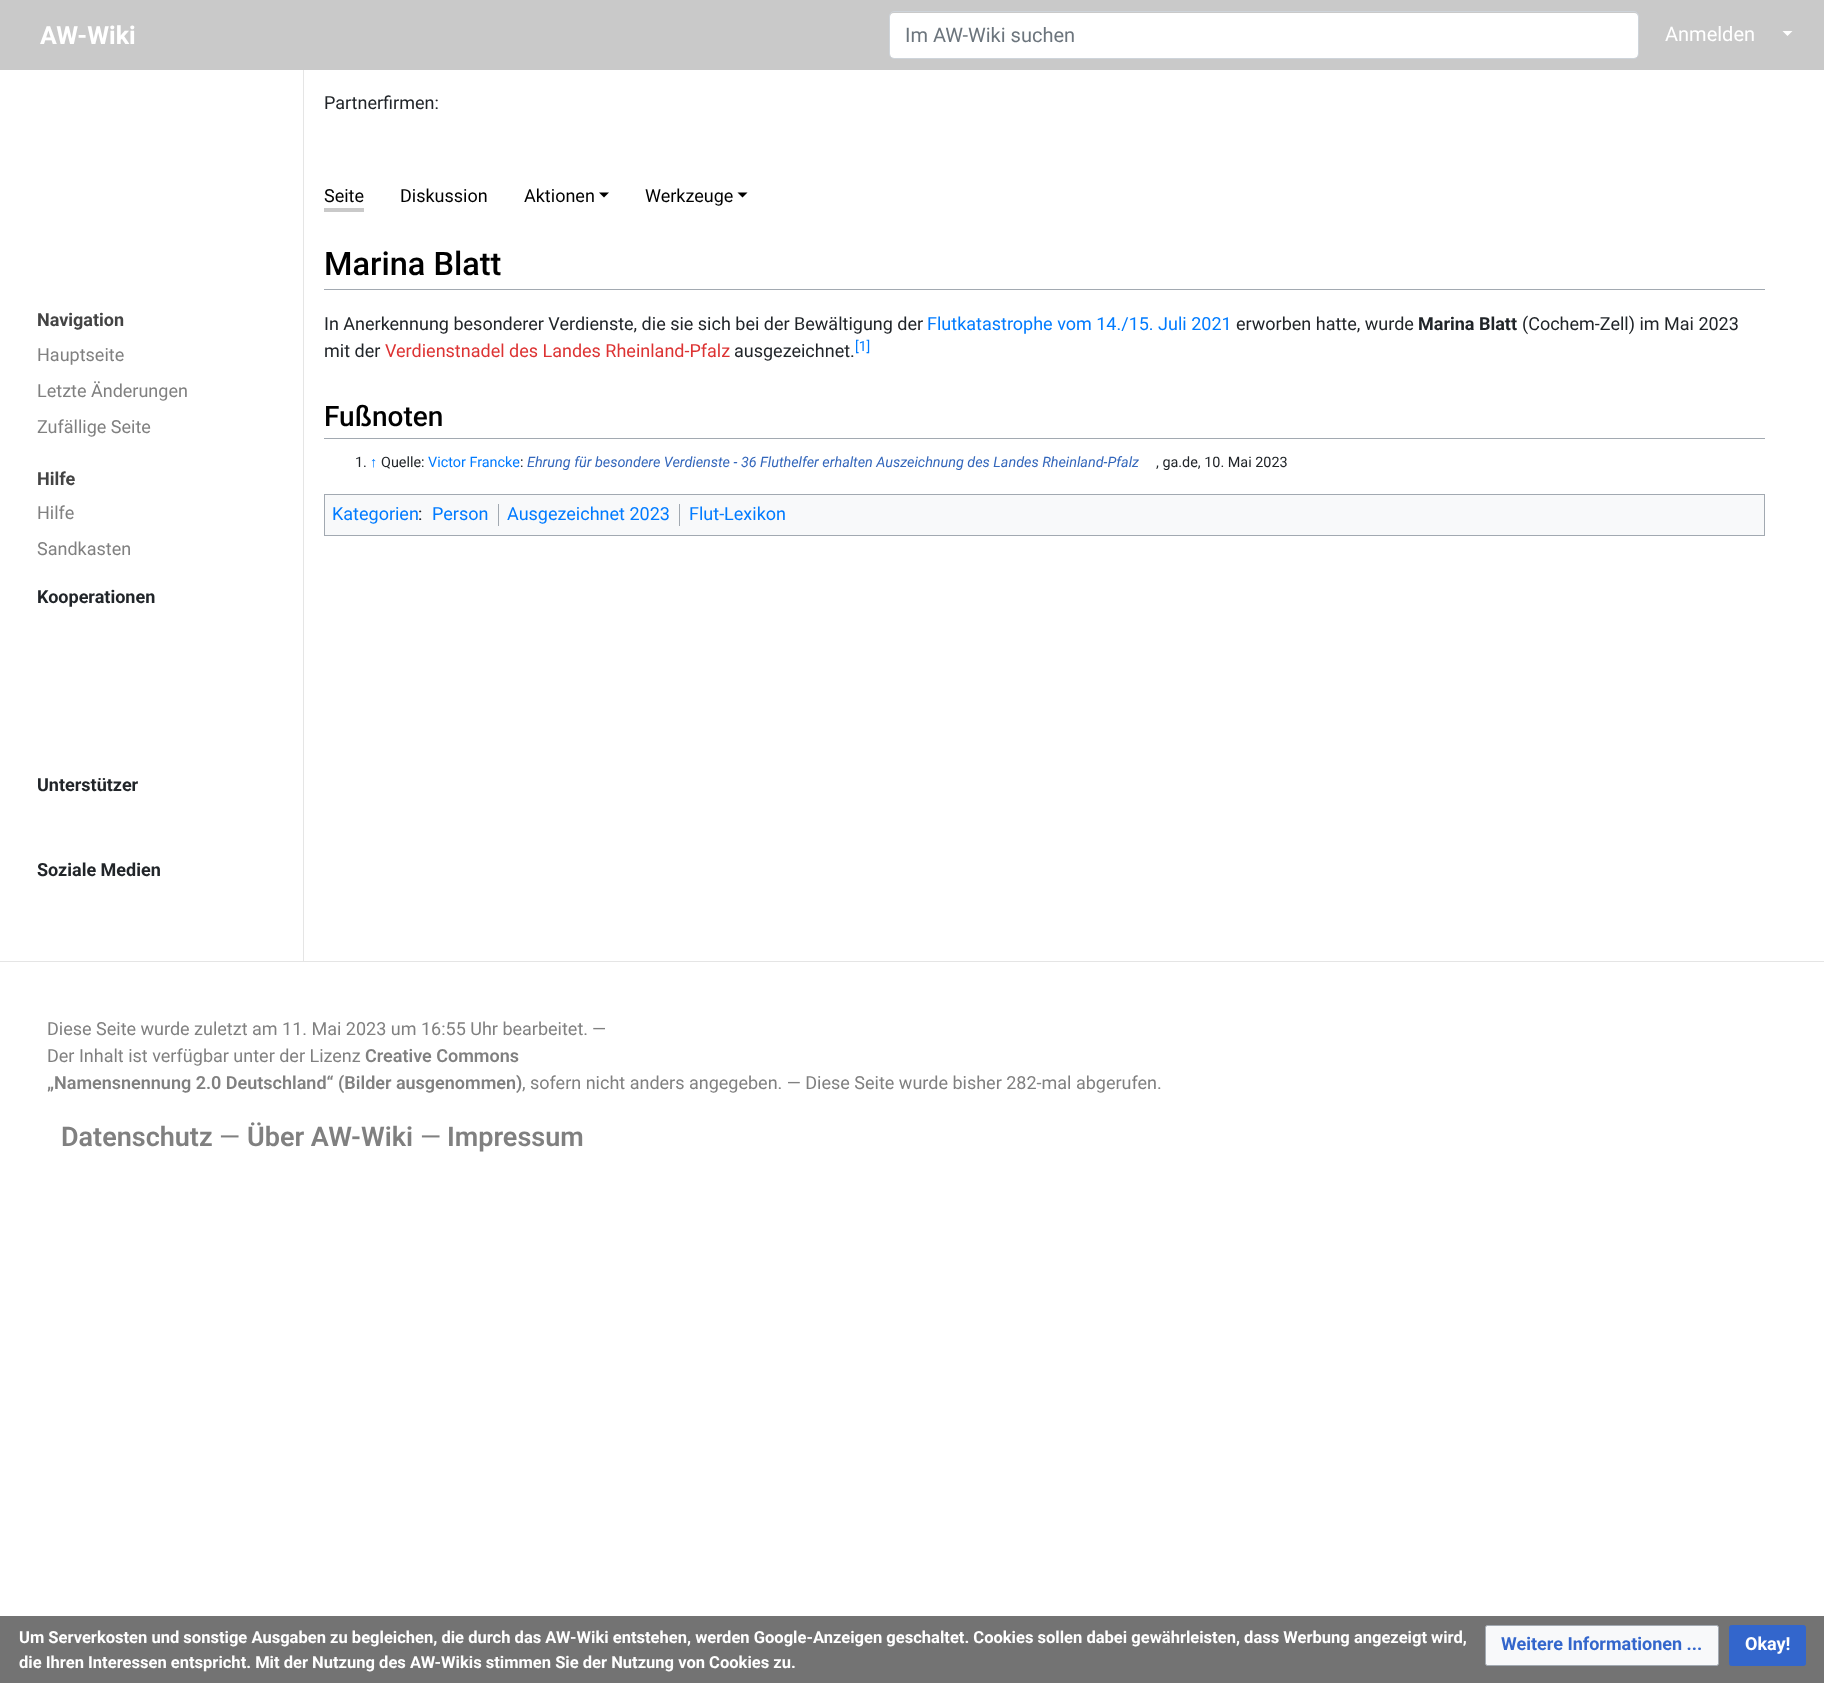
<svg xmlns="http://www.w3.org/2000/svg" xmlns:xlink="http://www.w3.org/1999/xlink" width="1824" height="1683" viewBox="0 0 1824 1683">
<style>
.cls-1{font:bold 25px Roboto;fill:#ffffff}
.cls-2{font:20px Roboto;fill:#6c757d}
.cls-3{font:20px Roboto;fill:#ffffff}
.cls-4{font:18px Roboto;fill:#212529}
.cls-5{font:18px Roboto;fill:#000000}
.cls-6{font:500 32.5px Roboto;fill:#000000}
.cls-7{font:18px Roboto;fill:#007bff}
.cls-8{font:bold 18px Roboto;fill:#212529}
.cls-9{font:18px Roboto;fill:#dd3333}
.cls-10{font:14px Roboto;fill:#007bff}
.cls-11{font:500 28px Roboto;fill:#000000}
.cls-12{font:14.4px Roboto;fill:#212529}
.cls-13{font:14.4px Liberation Sans;fill:#007bff}
.cls-14{font:14.4px Roboto;fill:#007bff}
.cls-15{font:italic 14.4px Roboto;fill:#3366bb}
.cls-16{font:bold 16.55px Roboto;fill:#ffffff}
.cls-17{font:bold 18px Roboto;fill:#3366cc}
.cls-18{font:bold 18px Roboto;fill:#ffffff}
.cls-19{font:bold 18px Roboto;fill:#444444}
.cls-20{font:18px Roboto;fill:#808080}
.cls-21{font:600 18px Roboto;fill:#808080}
.cls-22{font:600 27px Roboto;fill:#808080}
.cls-23{font:27px Roboto;fill:#808080}
</style>
<rect width="100%" height="100%" fill="#ffffff"/>
<rect fill="#c9c9c9" x="0" y="0" width="1824" height="70"/>
<rect fill="#ffffff" x="890" y="13" width="748" height="45" rx="4"/>
<rect fill="none" stroke="#ced4da" x="889.5" y="11.5" width="749" height="47" rx="4.5"/>
<path fill="#ffffff" d="M1782.5 31H1792.5L1787.5 36Z"/>
<rect fill="#c9c9c9" x="324" y="208" width="40" height="4"/>
<path fill="#000000" d="M599 192.5H609L604 197.5Z"/>
<path fill="#000000" d="M737.5 192.5H747.5L742.5 197.5Z"/>
<rect fill="#a2a9b1" x="324" y="289" width="1441" height="1"/>
<rect fill="#a2a9b1" x="324" y="438" width="1441" height="1"/>
<rect fill="#f8f9fa" stroke="#a2a9b1" x="324.5" y="494.5" width="1440" height="41"/>
<rect fill="#a2a9b1" x="498" y="504" width="1" height="22"/>
<rect fill="#a2a9b1" x="679" y="504" width="1" height="22"/>
<rect fill="#737373" x="0" y="1616" width="1824" height="67"/>
<rect fill="#f8f9fa" stroke="#a2a9b1" x="1485.5" y="1625.5" width="233" height="40" rx="2"/>
<rect fill="#3366cc" stroke="#3366cc" x="1729.5" y="1625.5" width="76" height="40" rx="2"/>
<rect fill="#e5e5e5" x="303" y="70" width="1" height="891"/>
<rect fill="#e5e5e5" x="0" y="961" width="1824" height="1"/>
<text class="cls-1" x="40" y="44">AW-Wiki</text>
<text class="cls-2" x="905" y="42">Im AW-Wiki suchen</text>
<text class="cls-3" x="1665" y="41">Anmelden</text>
<text class="cls-4" x="324" y="109">Partnerfirmen:</text>
<text class="cls-5" x="324" y="202">Seite</text>
<text class="cls-5" x="400" y="202">Diskussion</text>
<text class="cls-5" x="524" y="202">Aktionen</text>
<text class="cls-5" x="645" y="202">Werkzeuge</text>
<text class="cls-6" x="324" y="275">Marina Blatt</text>
<text class="cls-4" x="324" y="330">In Anerkennung besonderer Verdienste, die sie sich bei der Bewältigung der</text>
<text class="cls-7" x="927" y="330">Flutkatastrophe vom 14./15. Juli 2021</text>
<text class="cls-4" x="1236" y="330">erworben hatte, wurde</text>
<text class="cls-8" x="1418" y="330">Marina Blatt</text>
<text class="cls-4" x="1522" y="330">(Cochem-Zell) im Mai 2023</text>
<text class="cls-4" x="324" y="357">mit der</text>
<text class="cls-9" x="385" y="357">Verdienstnadel des Landes Rheinland-Pfalz</text>
<text class="cls-4" x="734" y="357">ausgezeichnet.</text>
<text class="cls-10" x="855" y="351">[1]</text>
<text class="cls-11" x="324" y="426">Fußnoten</text>
<text class="cls-12" x="355" y="467">1.</text>
<text class="cls-13" x="370" y="467">↑</text>
<text class="cls-12" x="381" y="467">Quelle:</text>
<text class="cls-14" x="428" y="467">Victor Francke</text>
<text class="cls-12" x="520" y="467">:</text>
<text class="cls-15" x="527" y="467">Ehrung für besondere Verdienste - 36 Fluthelfer erhalten Auszeichnung des Landes Rheinland-Pfalz</text>
<text class="cls-12" x="1156" y="467">, ga.de, 10. Mai 2023</text>
<text class="cls-7" x="332" y="520">Kategorien</text>
<text class="cls-4" x="418" y="520">:</text>
<text class="cls-7" x="432" y="520">Person</text>
<text class="cls-7" x="507" y="520">Ausgezeichnet 2023</text>
<text class="cls-7" x="689" y="520">Flut-Lexikon</text>
<text class="cls-16"><tspan x="19" y="1643">Um Serverkosten und sonstige Ausgaben zu begleichen, die durch das AW-Wiki entstehen, werden Google-Anzeigen geschaltet. Cookies sollen dabei gewährleisten, dass Werbung angezeigt wird,</tspan><tspan x="19" y="1668">die Ihren Interessen entspricht. Mit der Nutzung des AW-Wikis stimmen Sie der Nutzung von Cookies zu.</tspan></text>
<text class="cls-17" x="1501" y="1650">Weitere Informationen ...</text>
<text class="cls-18" x="1745" y="1650">Okay!</text>
<text class="cls-19" x="37" y="326">Navigation</text>
<text class="cls-20" x="37" y="361">Hauptseite</text>
<text class="cls-20" x="37" y="397">Letzte Änderungen</text>
<text class="cls-20" x="37" y="433">Zufällige Seite</text>
<text class="cls-19" x="37" y="485">Hilfe</text>
<text class="cls-20" x="37" y="519">Hilfe</text>
<text class="cls-20" x="37" y="555">Sandkasten</text>
<text class="cls-8" x="37" y="603">Kooperationen</text>
<text class="cls-8" x="37" y="791">Unterstützer</text>
<text class="cls-8" x="37" y="876">Soziale Medien</text>
<text class="cls-20" x="47" y="1035">Diese Seite wurde zuletzt am 11. Mai 2023 um 16:55 Uhr bearbeitet.</text>
<text class="cls-20" x="592" y="1035">―</text>
<text class="cls-20" x="47" y="1062">Der Inhalt ist verfügbar unter der Lizenz</text>
<text class="cls-21" x="365" y="1062">Creative Commons</text>
<text class="cls-21" x="47" y="1089">„Namensnennung 2.0 Deutschland“ (Bilder ausgenommen)</text>
<text class="cls-20" x="522" y="1089">, sofern nicht anders angegeben. ― Diese Seite wurde bisher 282-mal abgerufen.</text>
<text class="cls-22" x="61" y="1146">Datenschutz</text>
<text class="cls-23" x="219" y="1146">―</text>
<text class="cls-22" x="247" y="1146">Über AW-Wiki</text>
<text class="cls-23" x="420" y="1146">―</text>
<text class="cls-22" x="447" y="1146">Impressum</text>
</svg>
